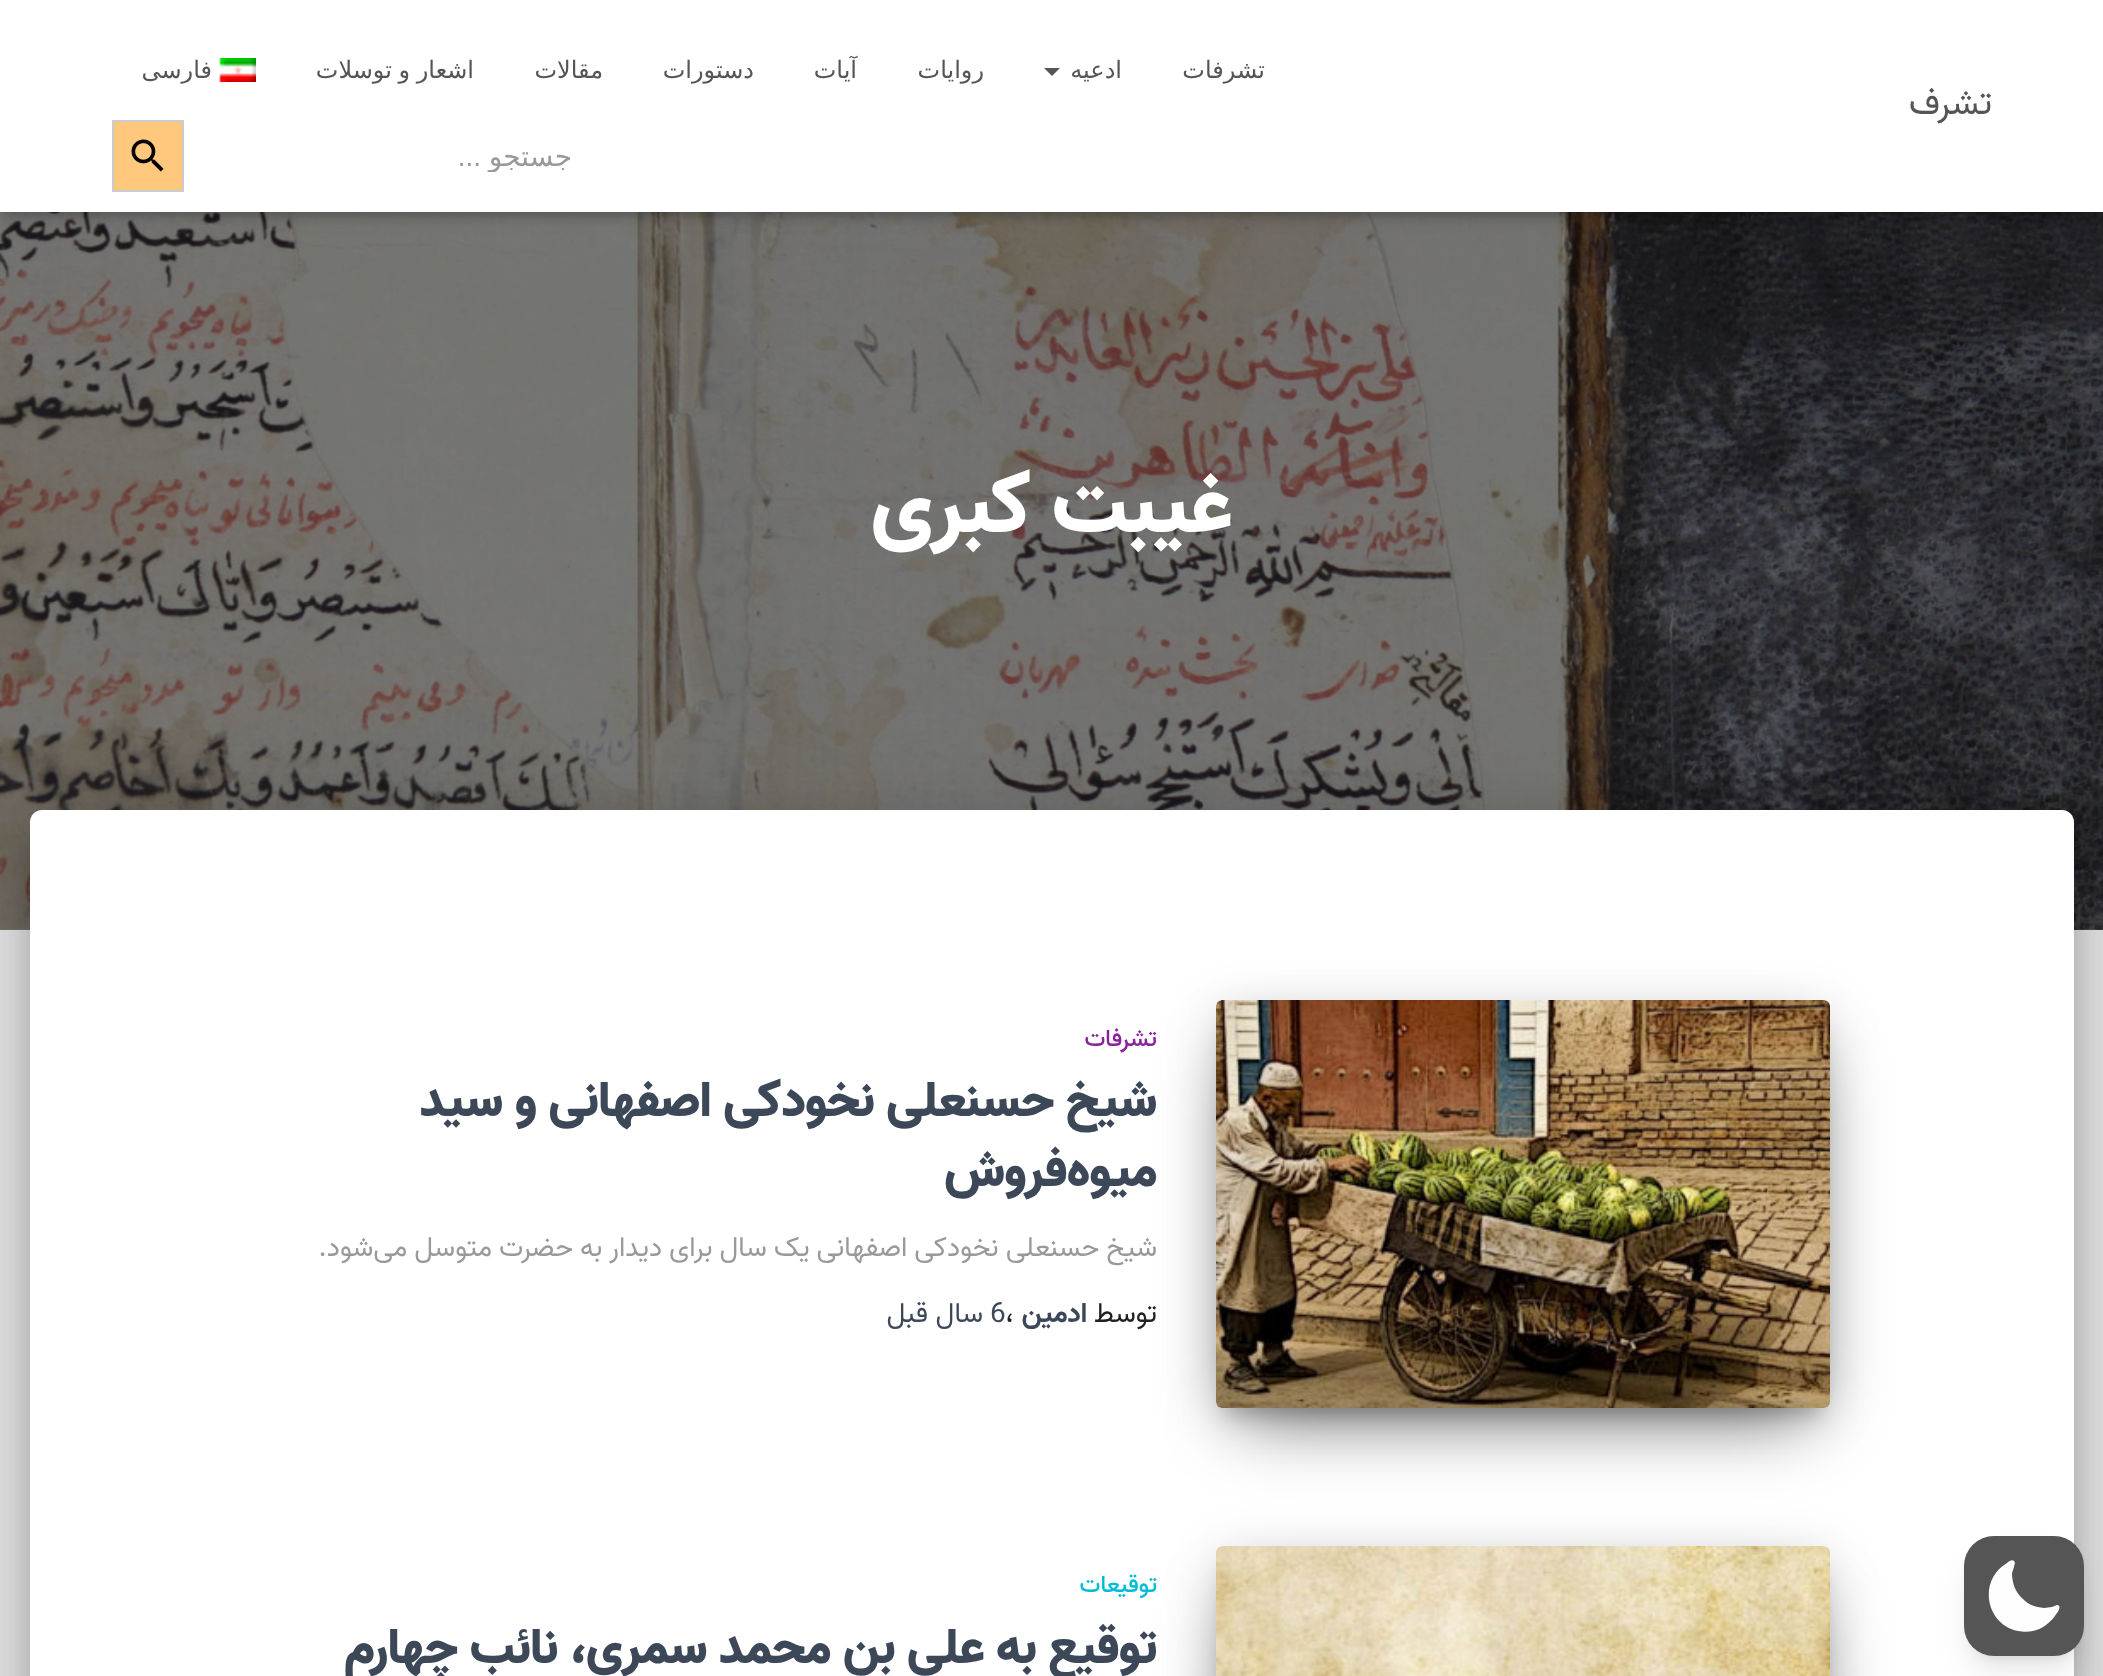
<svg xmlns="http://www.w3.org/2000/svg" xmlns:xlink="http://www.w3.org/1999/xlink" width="2103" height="1676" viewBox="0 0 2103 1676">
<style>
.cls-1{font:36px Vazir;direction:rtl;fill:#555555}
.cls-2{font:24px DejaVu Sans;direction:rtl;fill:#555555}
.cls-3{font:28px DejaVu Sans;direction:rtl;fill:#999999}
.cls-4{font:28px Liberation Sans;direction:rtl;fill:#999999}
.cls-5{font:900 84px Vazir;direction:rtl;fill:#ffffff}
.cls-6{font:500 24px Vazir;direction:rtl;fill:#89229b}
.cls-7{font:900 50px Vazir;direction:rtl;fill:#3c4858}
.cls-8{font:28px Vazir;direction:rtl;fill:#999999}
.cls-9{font:28px Vazir;direction:rtl;fill:#212121}
.cls-10{font:bold 28px Vazir;direction:rtl;fill:#3c4858}
.cls-11{font:28px Vazir;fill:#212121}
.cls-12{font:28px Vazir;fill:#3c4858}
.cls-13{font:28px Vazir;direction:rtl;fill:#3c4858}
.cls-14{font:500 24px Vazir;direction:rtl;fill:#00bcd4}
</style>
<defs>
<clipPath id="clip1"><rect x="210" y="140" width="362" height="32"/></clipPath>
</defs>
<rect width="100%" height="100%" fill="#e5e5e5"/>
<image xlink:href="image2.png" x="0" y="212" width="2103" height="718"/>
<rect fill="#000000" fill-opacity="0.2" filter="blur(10px)" x="40" y="836" width="2024" height="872" rx="2"/>
<rect fill="#000000" fill-opacity="0.12" filter="blur(30px)" x="20" y="812" width="2064" height="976" rx="22"/>
<rect fill="#000000" fill-opacity="0.14" filter="blur(24px)" x="26" y="838" width="2052" height="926" rx="16"/>
<path fill="#ffffff" d="M42 810H2062C2068.5 810 2074 815.5 2074 822V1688H30V822C30 815.5 35.5 810 42 810Z"/>
<rect fill="#000000" fill-opacity="0.1" filter="blur(6px)" x="1972" y="1552" width="104" height="104" rx="22"/>
<rect fill="#000000" fill-opacity="0.1" filter="blur(15px)" x="1970" y="1562" width="108" height="108" rx="24"/>
<rect fill="#555555" x="1964" y="1536" width="120" height="120" rx="30"/>
<path fill="#fefefe" fill-rule="evenodd" d="M2014 1561C2016 1563 2014 1565 2014 1567L2012 1573C2012 1582 2015 1592 2022 1598C2028 1605 2035 1607 2044 1608L2052 1607L2057 1605C2062 1605 2058 1612 2057 1613C2054 1618 2050 1622 2046 1625C2038 1631 2028 1633 2018 1631C1985 1624 1978 1580 2007 1563C2008 1562 2012 1559 2014 1561Z"/>
<rect fill="#000000" fill-opacity="0.1" filter="blur(5px)" x="4" y="12" width="2096" height="204"/>
<rect fill="#000000" fill-opacity="0.12" filter="blur(10px)" x="0" y="2" width="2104" height="212"/>
<rect fill="#000000" fill-opacity="0.42" filter="blur(10px)" x="12" y="14" width="2080" height="188"/>
<rect fill="#ffffff" x="0" y="0" width="2103" height="212"/>
<path fill="#555555" d="M1044 68H1060L1052 76Z"/>
<image xlink:href="image0.png" x="219" y="58" width="37" height="24"/>
<rect fill="#ffc87c" stroke="#cccccc" stroke-width="2" x="113" y="121" width="70" height="70"/>
<image xlink:href="image1.png" x="131" y="139" width="33" height="33"/>
<rect fill="#000000" fill-opacity="0.2" filter="blur(10px)" x="1226" y="1026" width="594" height="388"/>
<rect fill="#000000" fill-opacity="0.12" filter="blur(25px)" x="1216" y="1008" width="614" height="408" rx="6"/>
<rect fill="#000000" fill-opacity="0.56" filter="blur(38px)" x="1240" y="1056" width="566" height="360"/>
<image xlink:href="image3.png" x="1216" y="1000" width="614" height="408"/>
<rect fill="#000000" fill-opacity="0.2" filter="blur(10px)" x="1226" y="1572" width="594" height="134"/>
<rect fill="#000000" fill-opacity="0.12" filter="blur(25px)" x="1216" y="1554" width="614" height="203" rx="6"/>
<rect fill="#000000" fill-opacity="0.56" filter="blur(38px)" x="1240" y="1602" width="566" height="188"/>
<image xlink:href="image4.png" x="1216" y="1546" width="614" height="130"/>
<text class="cls-1" x="1992" y="114">تشرف</text>
<text class="cls-2" x="1265" y="78">تشرفات</text>
<text class="cls-2" x="1122" y="78">ادعیه</text>
<text class="cls-2" x="984" y="78">روایات</text>
<text class="cls-2" x="857" y="78">آیات</text>
<text class="cls-2" x="754" y="78">دستورات</text>
<text class="cls-2" x="603" y="78">مقالات</text>
<text class="cls-2" x="474" y="78" word-spacing="-1">اشعار و توسلات</text>
<text class="cls-2" x="212" y="78">فارسی</text>
<g clip-path="url(#clip1)">
<text class="cls-3" x="572" y="166">جستجو</text>
</g>
<text class="cls-4" x="481" y="166">...</text>
<text class="cls-5" x="1233" y="532">غیبت کبری</text>
<text class="cls-6" x="1157" y="1046">تشرفات</text>
<text class="cls-7"><tspan x="1157" y="1116">شیخ حسنعلی نخودکی اصفهانی و سید</tspan><tspan x="1157" y="1186">میوه‌فروش</tspan></text>
<text class="cls-8" x="1157" y="1256">شیخ حسنعلی نخودکی اصفهانی یک سال برای دیدار به حضرت متوسل می‌شود.</text>
<text class="cls-9" x="1157" y="1322">توسط</text>
<text class="cls-10" x="1087" y="1322">ادمین</text>
<text class="cls-11" x="1005" y="1322">،</text>
<text class="cls-12" x="990" y="1322">6</text>
<text class="cls-13" x="983" y="1322">سال</text>
<text class="cls-13" x="928" y="1322">قبل</text>
<text class="cls-14" x="1157" y="1592">توقیعات</text>
<text class="cls-7" x="1157" y="1663">توقیع به علی بن محمد سمری، نائب چهارم</text>
</svg>
